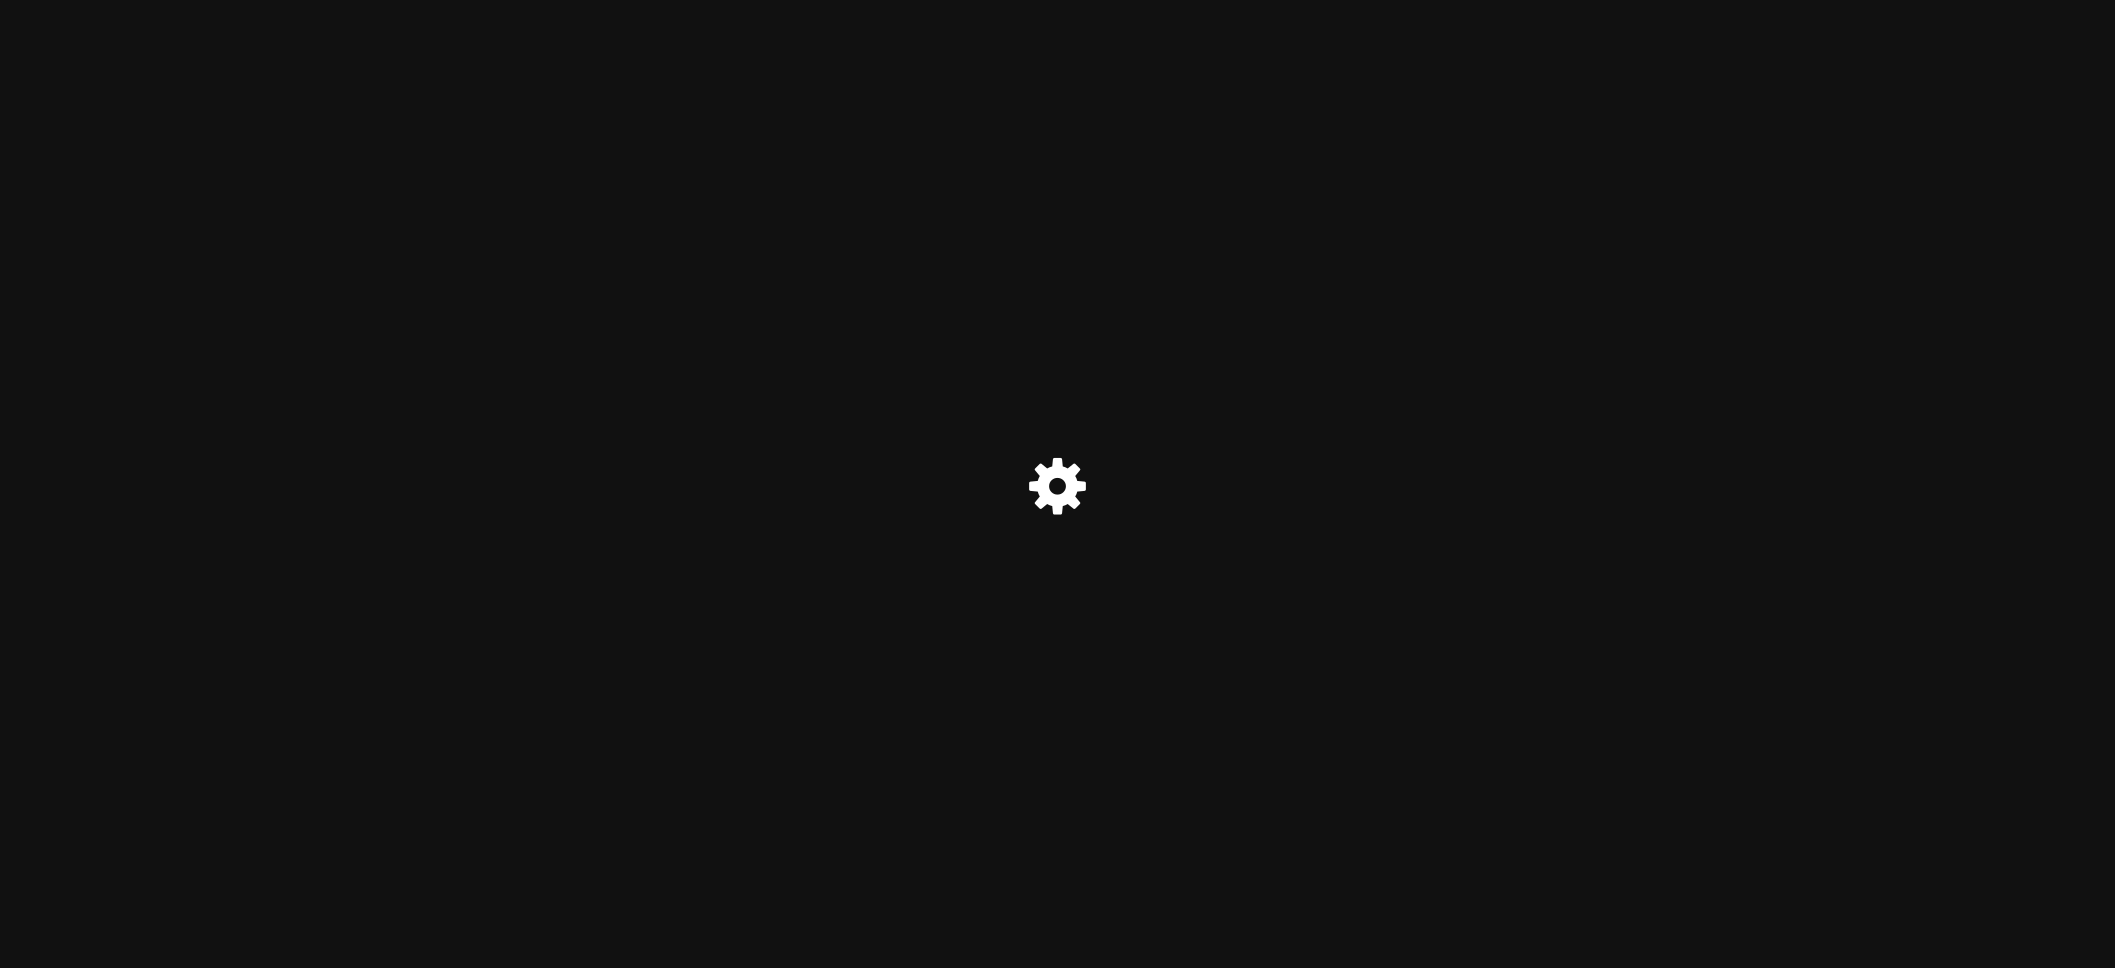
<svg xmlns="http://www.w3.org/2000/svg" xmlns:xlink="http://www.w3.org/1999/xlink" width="2115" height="968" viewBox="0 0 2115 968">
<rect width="100%" height="100%" fill="#111111"/>
<image xlink:href="image0.png" x="1029" y="457" width="57" height="58"/>
</svg>
